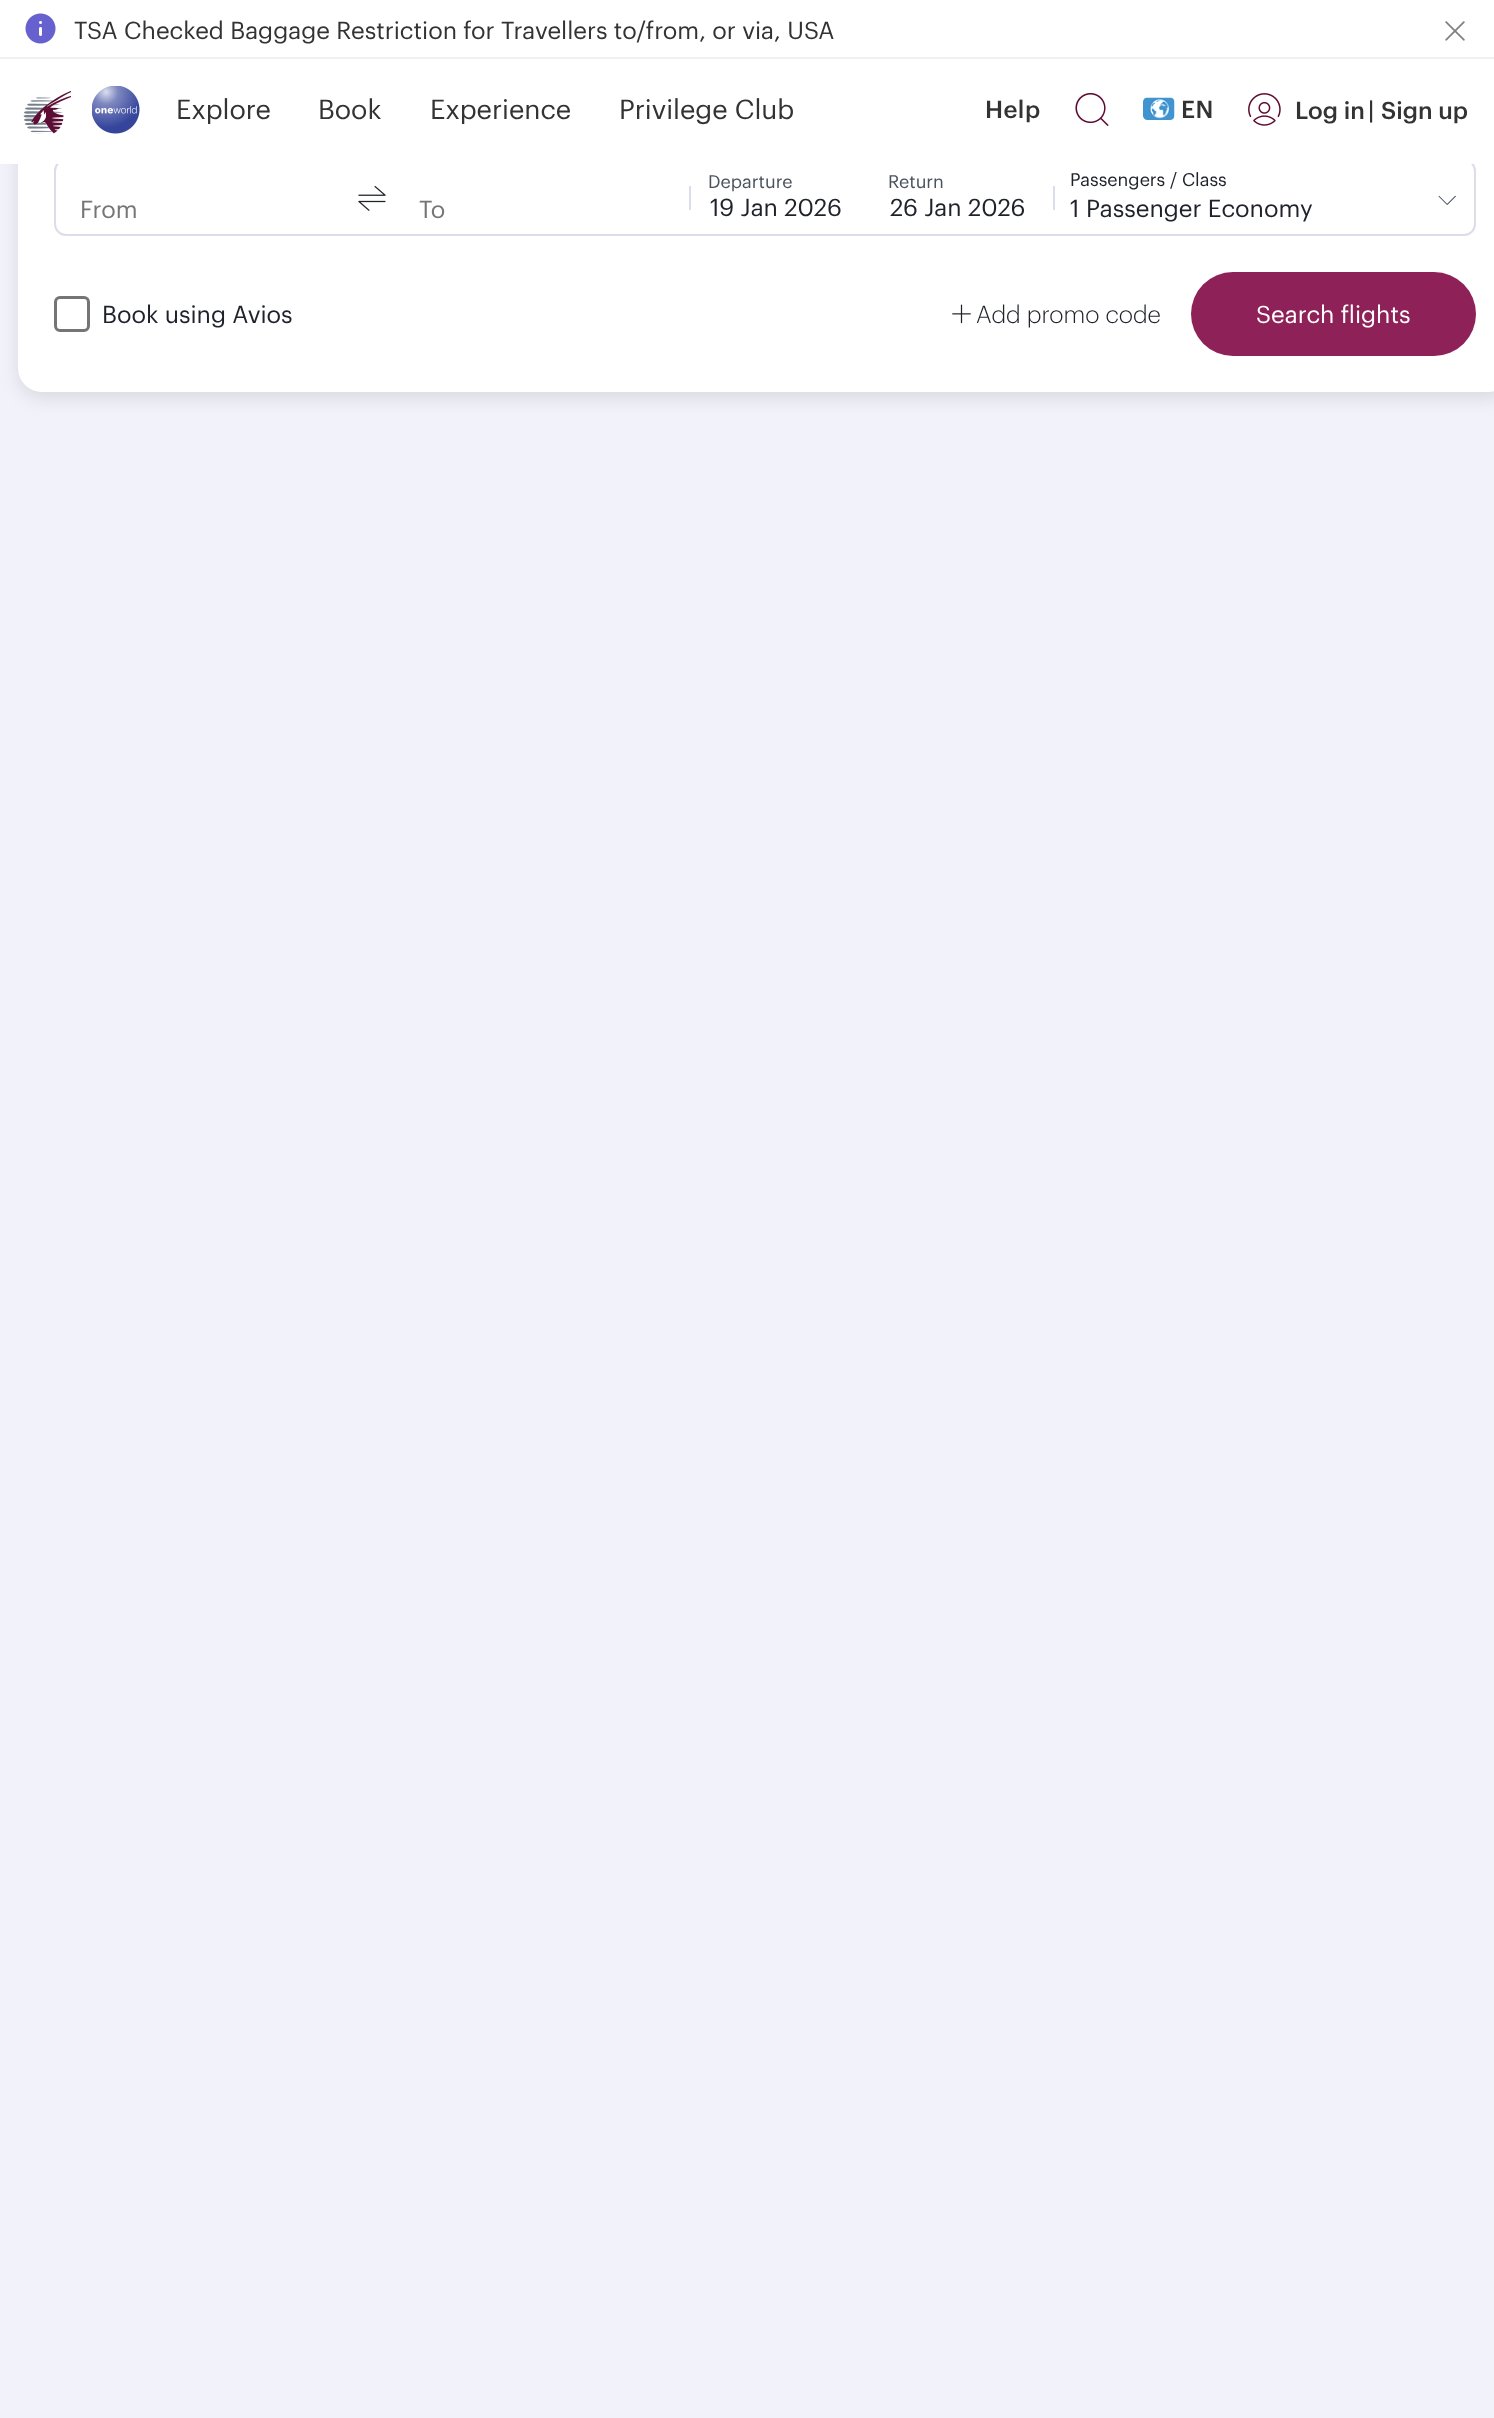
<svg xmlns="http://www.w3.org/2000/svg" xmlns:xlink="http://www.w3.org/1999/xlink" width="1494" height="2418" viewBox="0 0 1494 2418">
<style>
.cls-1{font:24px Graphik;fill:#333333}
.cls-2{font:27px Graphik;fill:#333333}
.cls-3{font:500 24px Graphik;letter-spacing:0.5px;fill:#333333}
.cls-4{font:500 24px Graphik;fill:#333333}
.cls-5{font:24px Graphik;fill:#757575}
.cls-6{font:18px Graphik;fill:#4a525d}
.cls-7{font:24px Graphik;fill:#1f212b}
.cls-8{font:18px Graphik;fill:#1f212b}
.cls-9{font:300 24px Graphik;fill:#1f212b}
.cls-10{font:24px Graphik;fill:#ffffff}
</style>
<rect width="100%" height="100%" fill="#f2f3fa"/>
<rect fill="#000000" fill-opacity="0.1" filter="blur(9px)" x="18" y="57" width="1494" height="341" rx="24"/>
<rect fill="#ffffff" x="18" y="51" width="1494" height="341" rx="24"/>
<rect fill="none" stroke="#dbdee8" stroke-width="2" x="55" y="160" width="1420" height="75" rx="11"/>
<rect fill="#ffffff" x="0" y="0" width="1494" height="164"/>
<rect fill="#eff0f1" x="0" y="57" width="1494" height="2"/>
<image xlink:href="image0.png" x="25" y="13" width="31" height="31"/>
<image xlink:href="image1.png" x="1445" y="21" width="20" height="20"/>
<image xlink:href="image2.png" x="23" y="91" width="48" height="43"/>
<image xlink:href="image3.png" x="92" y="86" width="48" height="48"/>
<image xlink:href="image4.png" x="1075" y="92" width="34" height="34"/>
<image xlink:href="image5.png" x="1143" y="97" width="32" height="23"/>
<image xlink:href="image6.png" x="1248" y="93" width="33" height="33"/>
<image xlink:href="image7.png" x="358" y="186" width="28" height="25"/>
<rect fill="#dbdee8" x="689" y="186" width="2" height="24"/>
<rect fill="#dbdee8" x="1053" y="186" width="2" height="24"/>
<image xlink:href="image8.png" x="1438" y="195" width="18" height="10"/>
<rect fill="none" stroke="#757575" stroke-width="3" x="55.5" y="297.5" width="33" height="33" rx="4.5"/>
<image xlink:href="image9.png" x="952" y="304" width="19" height="20"/>
<rect fill="#8e2157" x="1191" y="272" width="285" height="84" rx="42"/>
<text class="cls-1" x="74" y="39">TSA Checked Baggage Restriction for Travellers to/from, or via, USA</text>
<text class="cls-2" x="176" y="119">Explore</text>
<text class="cls-2" x="318" y="119">Book</text>
<text class="cls-2" x="430" y="119">Experience</text>
<text class="cls-2" x="619" y="119">Privilege Club</text>
<text class="cls-3" x="985" y="118">Help</text>
<text class="cls-3" x="1181" y="118">EN</text>
<text class="cls-4" x="1295" y="119">Log in</text>
<text class="cls-4" x="1368" y="119">|</text>
<text class="cls-4" x="1381" y="119">Sign up</text>
<text class="cls-5" x="80" y="218">From</text>
<text class="cls-5" x="419" y="218">To</text>
<text class="cls-6" x="708" y="188">Departure</text>
<text class="cls-7" x="710" y="216">19 Jan 2026</text>
<text class="cls-6" x="888" y="188">Return</text>
<text class="cls-7" x="890" y="216">26 Jan 2026</text>
<text class="cls-8" x="1070" y="186">Passengers / Class</text>
<text class="cls-7" x="1070" y="217">1 Passenger Economy</text>
<text class="cls-7" x="102" y="323">Book using Avios</text>
<text class="cls-9" x="976" y="323">Add promo code</text>
<text class="cls-10" x="1256" y="323">Search flights</text>
</svg>
